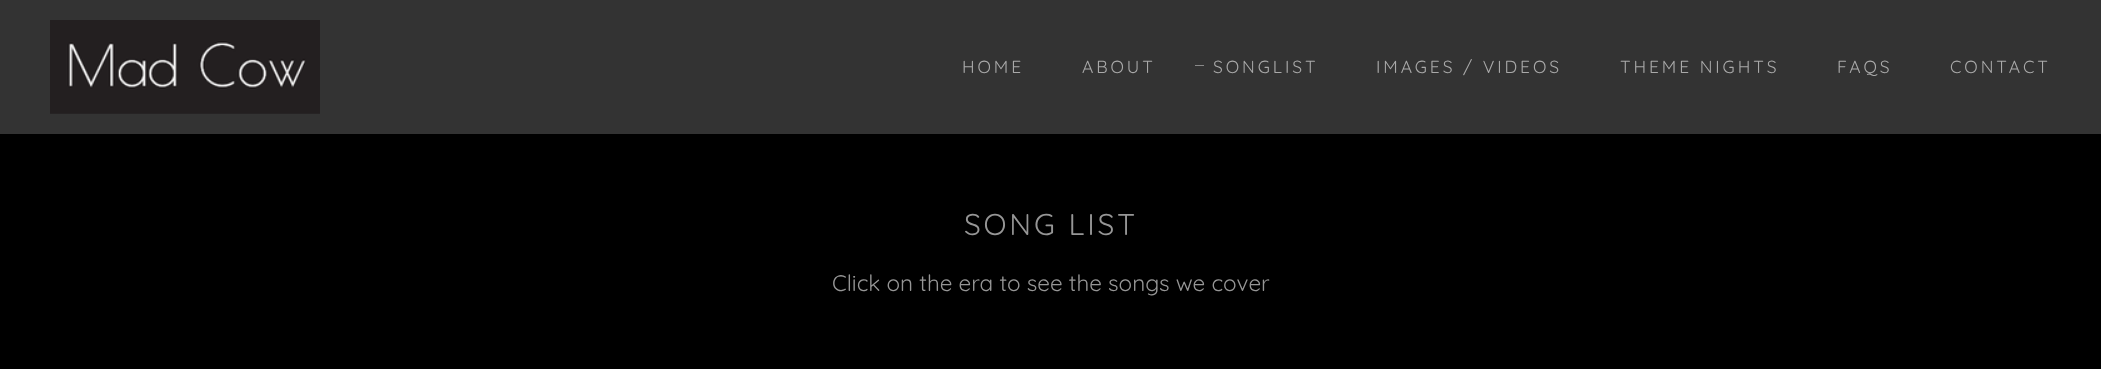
<svg xmlns="http://www.w3.org/2000/svg" xmlns:xlink="http://www.w3.org/1999/xlink" width="2101" height="369" viewBox="0 0 2101 369">
<style>
.cls-1{font:17.5px Quicksand;letter-spacing:2.9px;fill:#a9a9a9}
.cls-2{font:30px Quicksand;letter-spacing:2.75px;fill:#969696}
.cls-3{font:22.5px Quicksand;fill:#969696}
</style>
<rect width="100%" height="100%" fill="#000000"/>
<rect fill="#333333" x="0" y="0" width="2101" height="134"/>
<image xlink:href="image0.png" x="50" y="20" width="270" height="94"/>
<rect fill="#898989" x="1195" y="65" width="9" height="1"/>
<text class="cls-1" x="962" y="73">HOME</text>
<text class="cls-1" x="1082" y="73">ABOUT</text>
<text class="cls-1" x="1213" y="73">SONGLIST</text>
<text class="cls-1" x="1376" y="73">IMAGES / VIDEOS</text>
<text class="cls-1" x="1620" y="73">THEME NIGHTS</text>
<text class="cls-1" x="1837" y="73">FAQS</text>
<text class="cls-1" x="1950" y="73">CONTACT</text>
<text class="cls-2" x="964" y="235">SONG LIST</text>
<text class="cls-3" x="832" y="291">Click on the era to see the songs we cover</text>
</svg>
